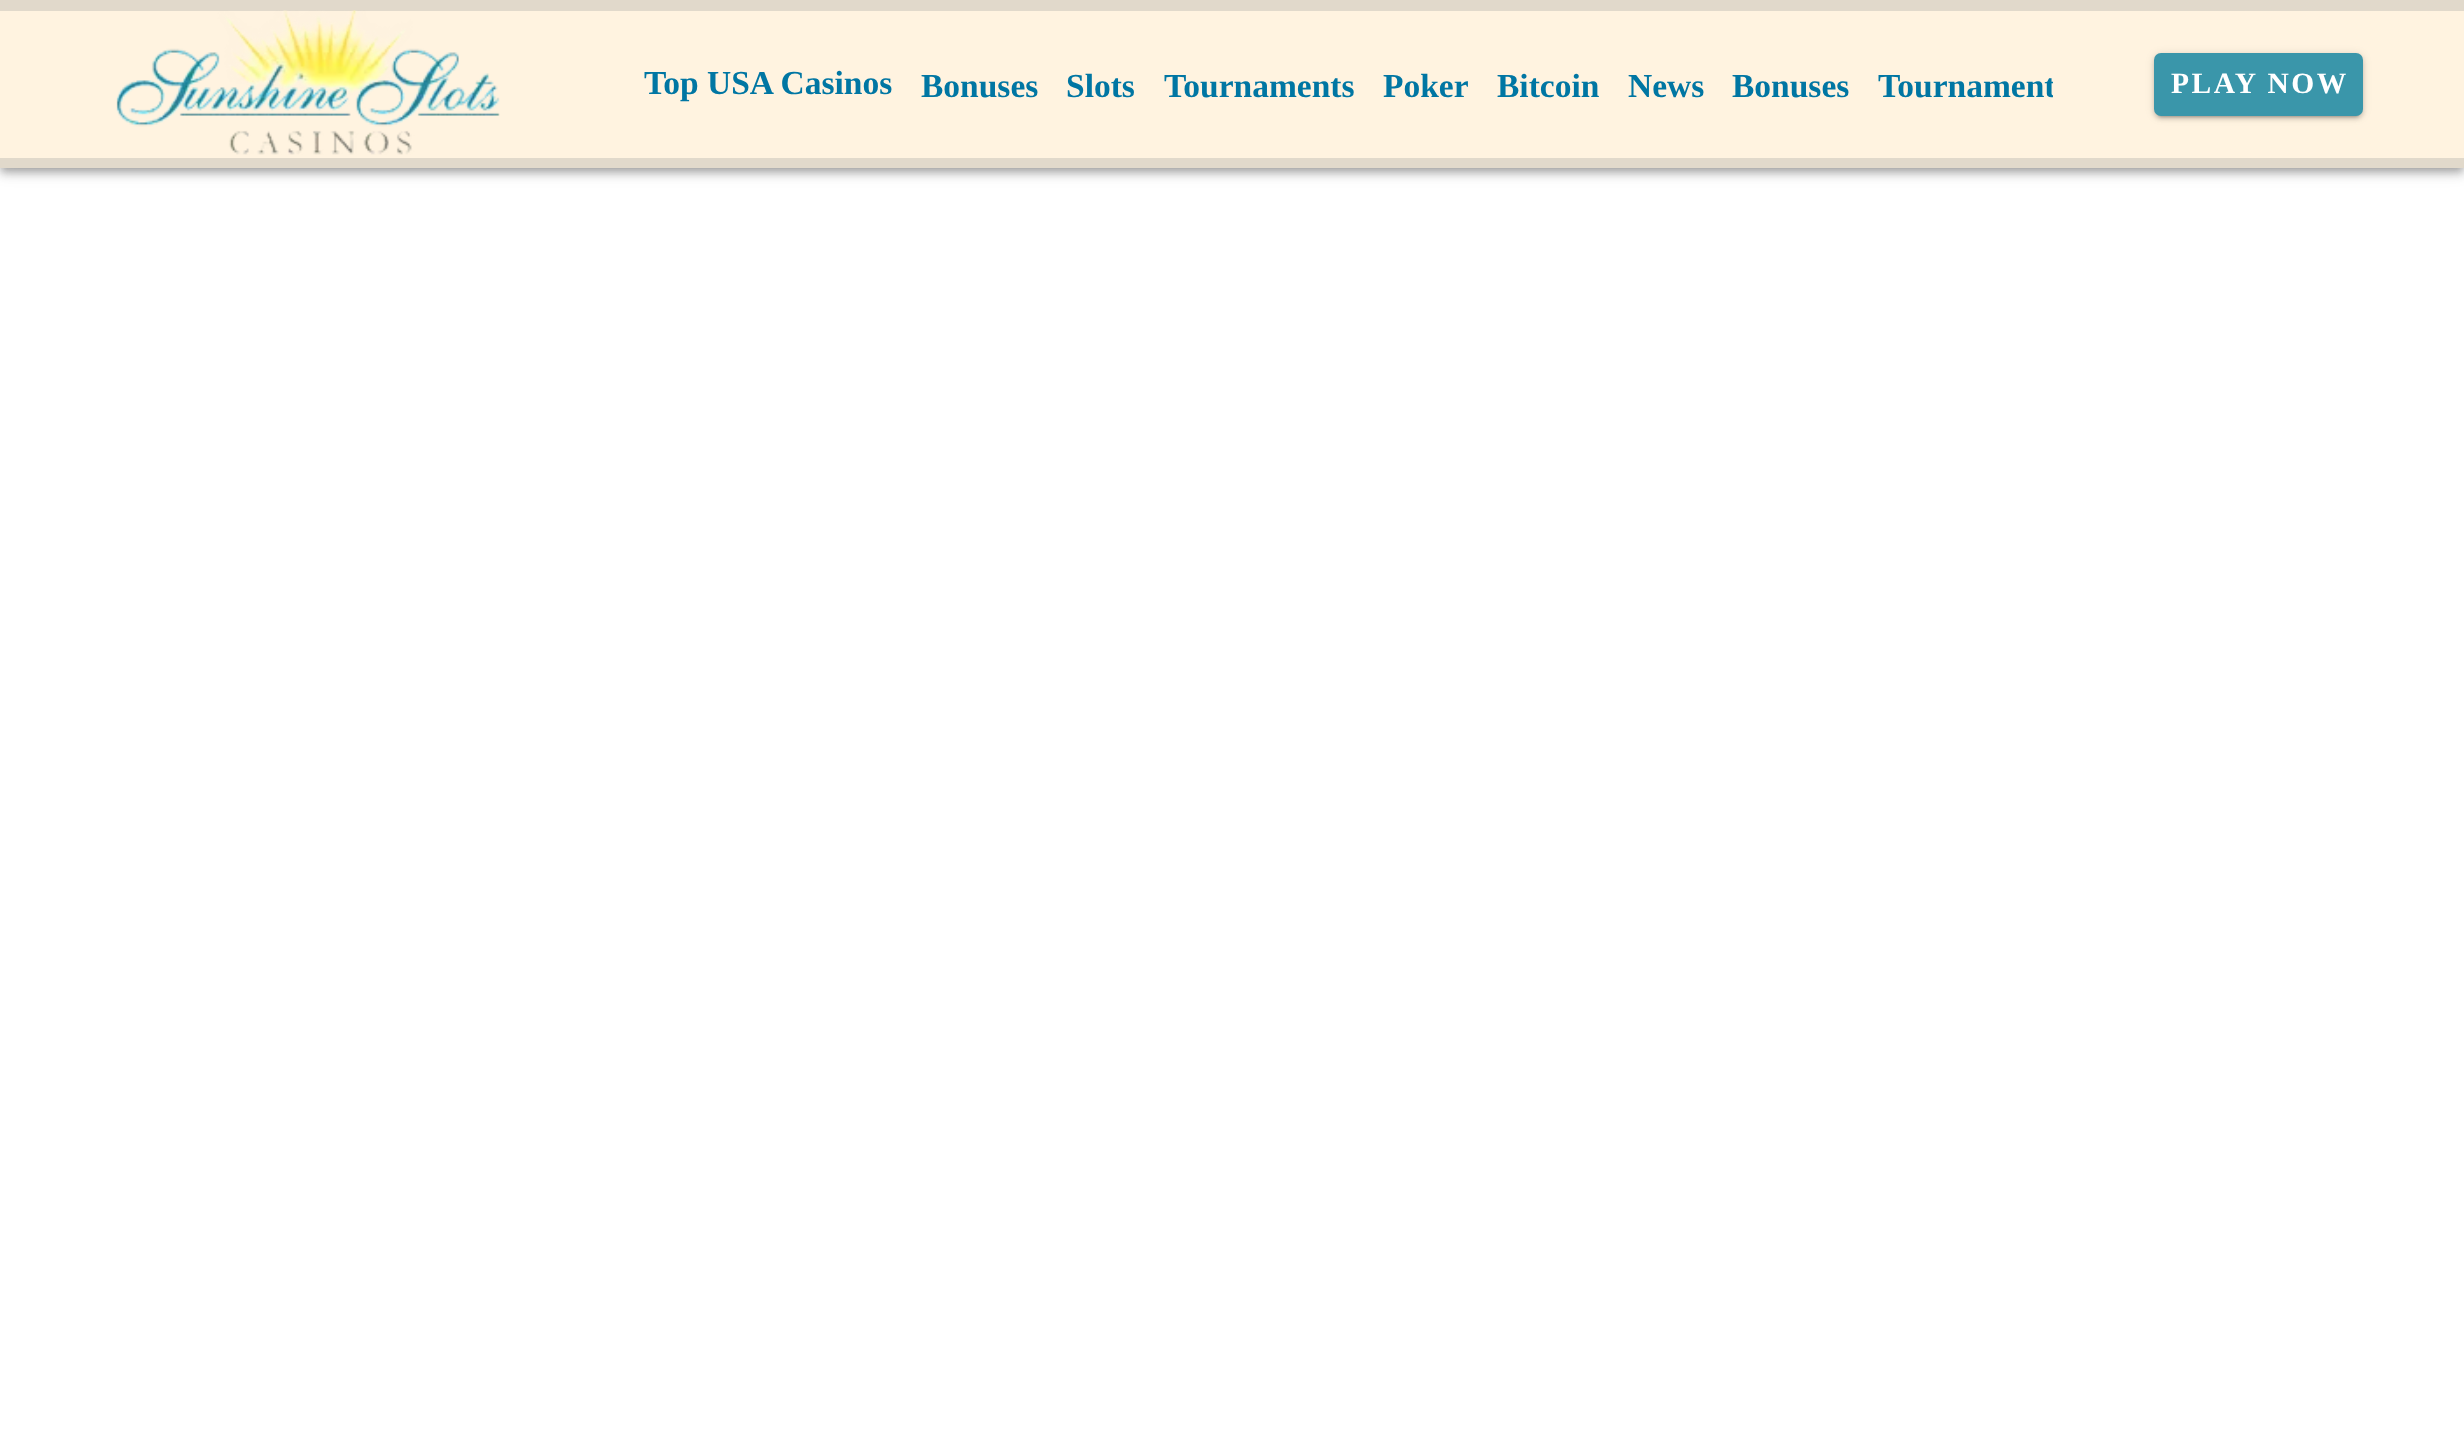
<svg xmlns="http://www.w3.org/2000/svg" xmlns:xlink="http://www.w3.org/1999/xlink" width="2464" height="1453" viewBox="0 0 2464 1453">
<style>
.cls-1{font:bold 33.5px Liberation Serif;fill:#0076a3}
.cls-2{font:bold 29.5px Liberation Serif;letter-spacing:2.5px;fill:#ffffff}
</style>
<defs>
<clipPath id="clip1"><rect x="1878" y="63" width="175" height="49"/></clipPath>
</defs>
<rect width="100%" height="100%" fill="#ffffff"/>
<rect fill="#000000" fill-opacity="0.12" filter="blur(9px)" x="0" y="2" width="2464" height="168"/>
<rect fill="#000000" fill-opacity="0.14" filter="blur(4.5px)" x="0" y="7" width="2464" height="168"/>
<rect fill="#000000" fill-opacity="0.2" filter="blur(3.5px)" x="2" y="5" width="2460" height="165"/>
<rect fill="#fff3e0" x="0" y="11" width="2464" height="147"/>
<rect fill="#e1d9cb" x="0" y="0" width="2464" height="11"/>
<rect fill="#e1d9cb" x="0" y="158" width="2464" height="10"/>
<image xlink:href="image0.png" x="116" y="10" width="384" height="145"/>
<rect fill="#000000" fill-opacity="0.12" filter="blur(4.5px)" x="2154" y="54" width="209" height="63" rx="7"/>
<rect fill="#000000" fill-opacity="0.14" filter="blur(2px)" x="2154" y="56" width="209" height="63" rx="7"/>
<rect fill="#000000" fill-opacity="0.2" filter="blur(1px)" x="2158" y="61" width="201" height="56" rx="4"/>
<rect fill="#3a96aa" x="2154" y="53" width="209" height="63" rx="7"/>
<text class="cls-1" x="644" y="94">Top USA Casinos</text>
<text class="cls-1" x="921" y="97">Bonuses</text>
<text class="cls-1" x="1066" y="97">Slots</text>
<text class="cls-1" x="1164" y="97">Tournaments</text>
<text class="cls-1" x="1383" y="97">Poker</text>
<text class="cls-1" x="1497" y="97">Bitcoin</text>
<text class="cls-1" x="1628" y="97">News</text>
<text class="cls-1" x="1732" y="97">Bonuses</text>
<g clip-path="url(#clip1)">
<text class="cls-1" x="1878" y="97">Tournament</text>
</g>
<text class="cls-2" x="2171" y="93">PLAY NOW</text>
</svg>
